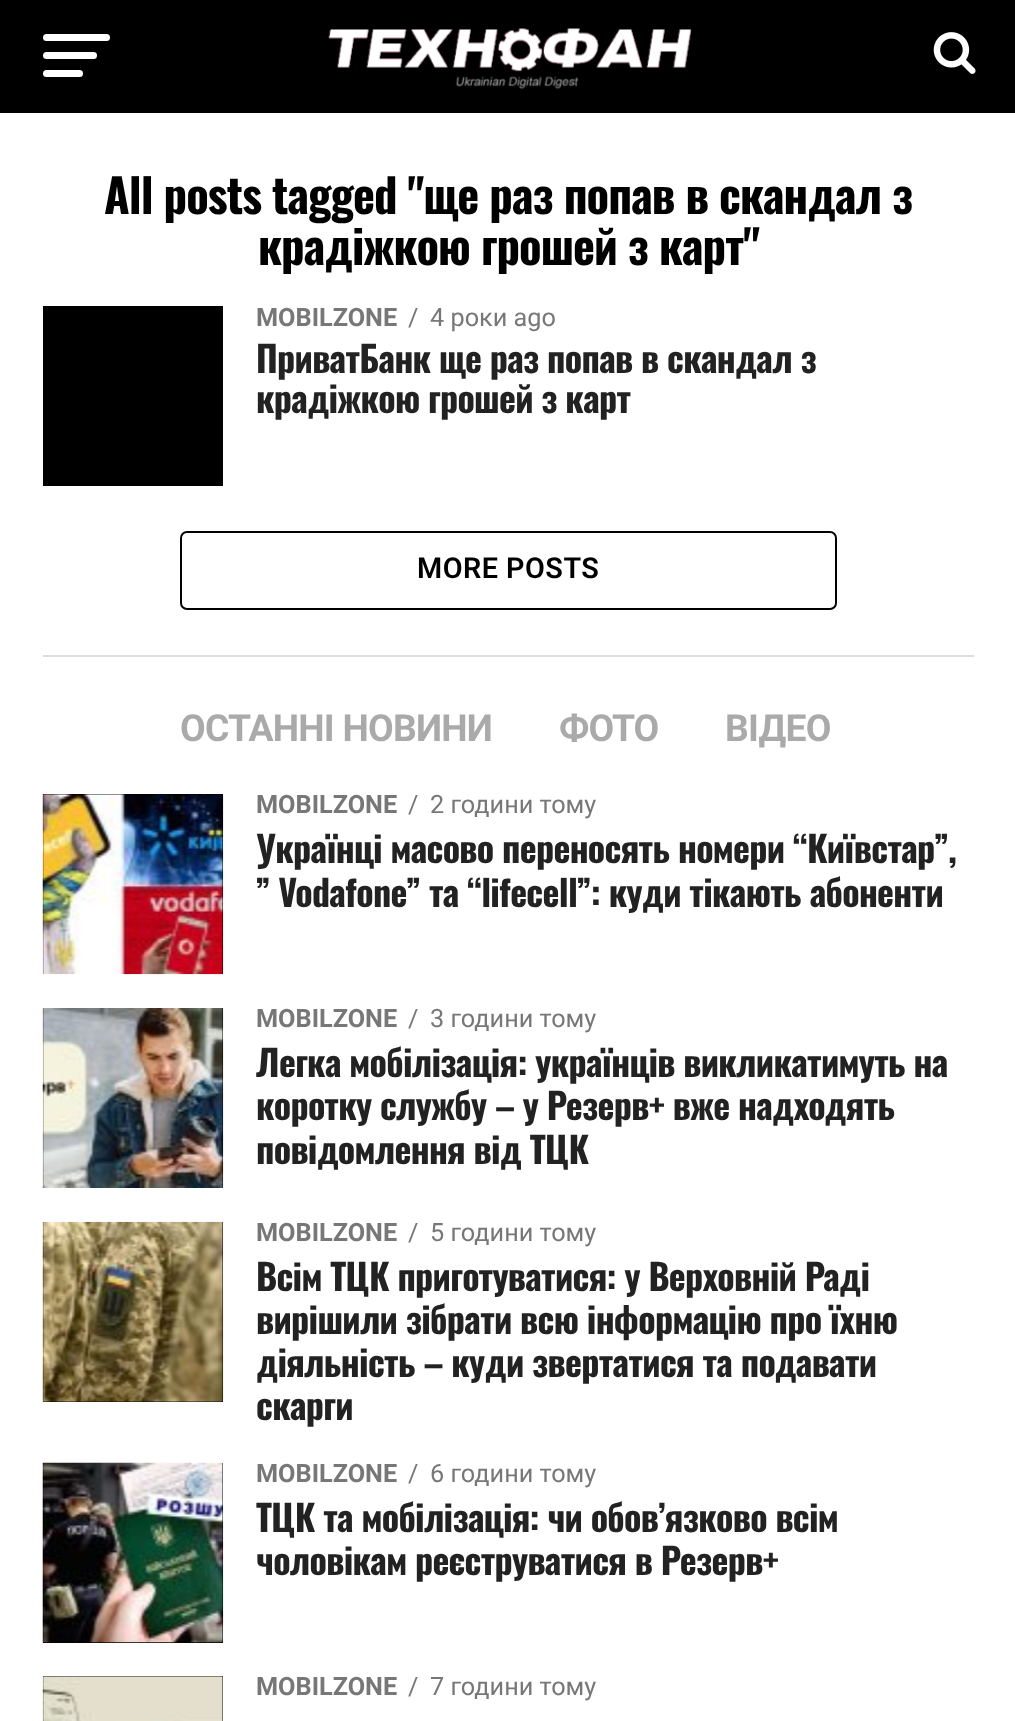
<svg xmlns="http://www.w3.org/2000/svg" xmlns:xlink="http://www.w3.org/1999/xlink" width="1015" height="1721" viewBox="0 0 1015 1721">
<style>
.cls-1{font:bold 46.75px Oswald;letter-spacing:-0.95px;fill:#000000}
.cls-2{font:bold 25.25px Roboto;fill:#777777}
.cls-3{font:25.25px Roboto;fill:#777777}
.cls-4{font:bold 36px Oswald;letter-spacing:-0.7px;fill:#222222}
.cls-5{font:600 28.75px Roboto;letter-spacing:0.5px;fill:#000000}
.cls-6{font:bold 37.25px Roboto;letter-spacing:-0.75px;fill:#aaaaaa}
.cls-7{font:bold 37.25px Roboto;letter-spacing:-1px;fill:#aaaaaa}
</style>
<rect width="100%" height="100%" fill="#ffffff"/>
<rect fill="#000000" x="0" y="0" width="1015" height="113"/>
<rect fill="#ffffff" x="43" y="34" width="67" height="7" rx="3.5"/>
<rect fill="#ffffff" x="43" y="52" width="54" height="7" rx="3.5"/>
<rect fill="#ffffff" x="43" y="70" width="40" height="7" rx="3.5"/>
<image xlink:href="image0.png" x="328" y="28" width="364" height="61"/>
<image xlink:href="image1.png" x="933" y="32" width="43" height="42"/>
<rect fill="#000000" x="43" y="306" width="180" height="180"/>
<rect fill="none" stroke="#000000" stroke-width="2" x="181" y="532" width="655" height="77" rx="6"/>
<rect fill="#dddddd" x="43" y="655" width="931" height="2"/>
<rect fill="#000000" x="43" y="794" width="180" height="180"/>
<image xlink:href="image2.png" x="42" y="794" width="182" height="181"/>
<rect fill="#000000" x="43" y="1008" width="180" height="180"/>
<image xlink:href="image3.png" x="42" y="1008" width="182" height="180"/>
<rect fill="#000000" x="43" y="1222" width="180" height="180"/>
<image xlink:href="image4.png" x="42" y="1221" width="182" height="181"/>
<rect fill="#000000" x="43" y="1463" width="180" height="180"/>
<image xlink:href="image5.png" x="42" y="1462" width="182" height="181"/>
<rect fill="#000000" x="43" y="1676" width="180" height="45"/>
<image xlink:href="image6.png" x="42" y="1676" width="181" height="45"/>
<text class="cls-1" x="104" y="214">All posts tagged "ще раз попав в скандал з</text>
<text class="cls-1" x="258" y="265">крадіжкою грошей з карт"</text>
<text class="cls-2" x="256" y="326">MOBILZONE</text>
<text class="cls-3" x="408" y="326">/</text>
<text class="cls-3" x="430" y="326">4 роки ago</text>
<text class="cls-4"><tspan x="256" y="373">ПриватБанк ще раз попав в скандал з</tspan><tspan x="256" y="413">крадіжкою грошей з карт</tspan></text>
<text class="cls-5" x="417" y="578">MORE POSTS</text>
<text class="cls-6" x="180" y="741">ОСТАННІ НОВИНИ</text>
<text class="cls-7" x="559" y="741">ФОТО</text>
<text class="cls-6" x="725" y="741">ВІДЕО</text>
<text class="cls-2" x="256" y="813">MOBILZONE</text>
<text class="cls-3" x="408" y="813">/</text>
<text class="cls-3" x="430" y="813">2 години тому</text>
<text class="cls-4"><tspan x="256" y="863">Українці масово переносять номери “Київстар”,</tspan><tspan x="256" y="907">” Vodafone” та “lifecell”: куди тікають абоненти</tspan></text>
<text class="cls-2" x="256" y="1027">MOBILZONE</text>
<text class="cls-3" x="408" y="1027">/</text>
<text class="cls-3" x="430" y="1027">3 години тому</text>
<text class="cls-4"><tspan x="256" y="1077">Легка мобілізація: українців викликатимуть на</tspan><tspan x="256" y="1120">коротку службу – у Резерв+ вже надходять</tspan><tspan x="256" y="1164">повідомлення від ТЦК</tspan></text>
<text class="cls-2" x="256" y="1241">MOBILZONE</text>
<text class="cls-3" x="408" y="1241">/</text>
<text class="cls-3" x="430" y="1241">5 години тому</text>
<text class="cls-4"><tspan x="256" y="1291">Всім ТЦК приготуватися: у Верховній Раді</tspan><tspan x="256" y="1334">вирішили зібрати всю інформацію про їхню</tspan><tspan x="256" y="1377">діяльність – куди звертатися та подавати</tspan><tspan x="256" y="1420">скарги</tspan></text>
<text class="cls-2" x="256" y="1482">MOBILZONE</text>
<text class="cls-3" x="408" y="1482">/</text>
<text class="cls-3" x="430" y="1482">6 години тому</text>
<text class="cls-4"><tspan x="256" y="1532">ТЦК та мобілізація: чи обов’язково всім</tspan><tspan x="256" y="1575">чоловікам реєструватися в Резерв+</tspan></text>
<text class="cls-2" x="256" y="1695">MOBILZONE</text>
<text class="cls-3" x="408" y="1695">/</text>
<text class="cls-3" x="430" y="1695">7 години тому</text>
</svg>
